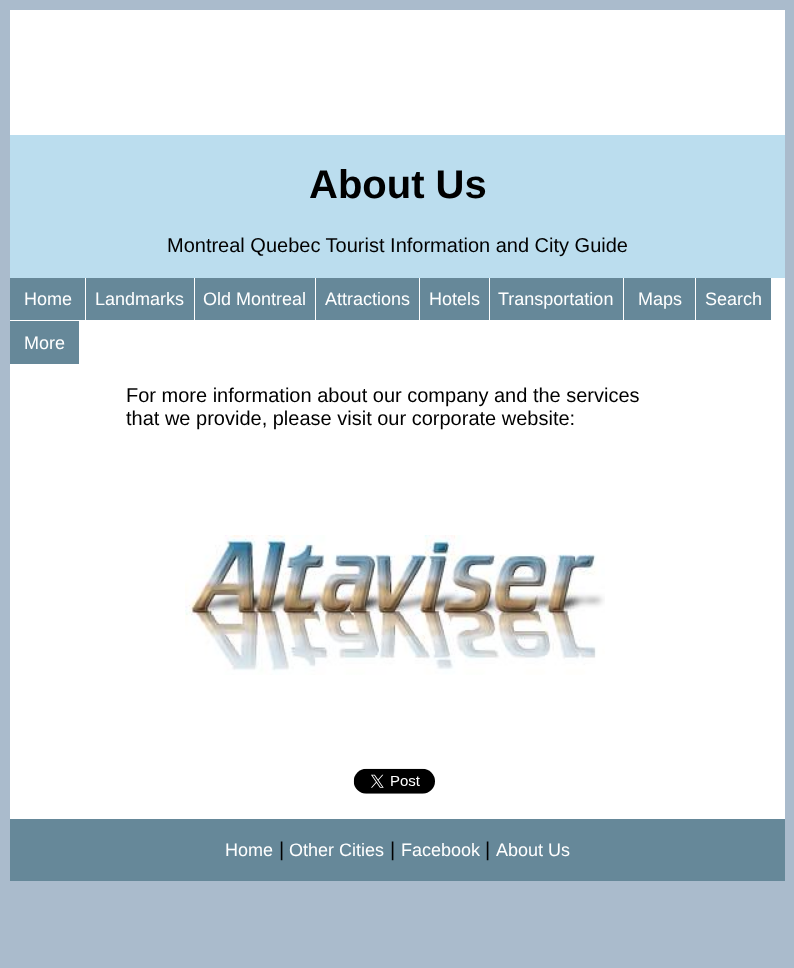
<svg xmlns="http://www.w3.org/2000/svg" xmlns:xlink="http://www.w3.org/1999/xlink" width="794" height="968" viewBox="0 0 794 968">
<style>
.cls-1{font:bold 40px Liberation Sans;fill:#000000}
.cls-2{font:20px Liberation Sans;fill:#000000}
.cls-3{font:18px Liberation Sans;fill:#ffffff}
</style>
<rect width="100%" height="100%" fill="#aabbcc"/>
<rect fill="#ffffff" x="10" y="10" width="775" height="809"/>
<rect fill="#bbddee" x="10" y="135" width="775" height="143"/>
<rect fill="#668899" x="10" y="278" width="75" height="42"/>
<rect fill="#668899" x="86" y="278" width="108" height="42"/>
<rect fill="#668899" x="195" y="278" width="120" height="42"/>
<rect fill="#668899" x="316" y="278" width="103" height="42"/>
<rect fill="#668899" x="420" y="278" width="69" height="42"/>
<rect fill="#668899" x="490" y="278" width="133" height="42"/>
<rect fill="#668899" x="624" y="278" width="71" height="42"/>
<rect fill="#668899" x="696" y="278" width="75" height="42"/>
<rect fill="#668899" x="10" y="321" width="69" height="43"/>
<image xlink:href="image0.png" x="185" y="535" width="420" height="140"/>
<image xlink:href="image1.png" x="353" y="768" width="82" height="26"/>
<rect fill="#668899" x="10" y="819" width="775" height="62"/>
<text class="cls-1" x="309" y="198">About Us</text>
<text class="cls-2" x="167" y="252">Montreal Quebec Tourist Information and City Guide</text>
<text class="cls-3" x="24" y="305">Home</text>
<text class="cls-3" x="95" y="305">Landmarks</text>
<text class="cls-3" x="203" y="305">Old Montreal</text>
<text class="cls-3" x="325" y="305">Attractions</text>
<text class="cls-3" x="429" y="305">Hotels</text>
<text class="cls-3" x="498" y="305">Transportation</text>
<text class="cls-3" x="638" y="305">Maps</text>
<text class="cls-3" x="705" y="305">Search</text>
<text class="cls-3" x="24" y="349">More</text>
<text class="cls-2"><tspan x="126" y="402">For more information about our company and the services</tspan><tspan x="126" y="425">that we provide, please visit our corporate website:</tspan></text>
<text class="cls-3" x="225" y="856">Home</text>
<text class="cls-2" x="279" y="856">|</text>
<text class="cls-3" x="289" y="856">Other Cities</text>
<text class="cls-2" x="390" y="856">|</text>
<text class="cls-3" x="401" y="856">Facebook</text>
<text class="cls-2" x="485" y="856">|</text>
<text class="cls-3" x="496" y="856">About Us</text>
</svg>
